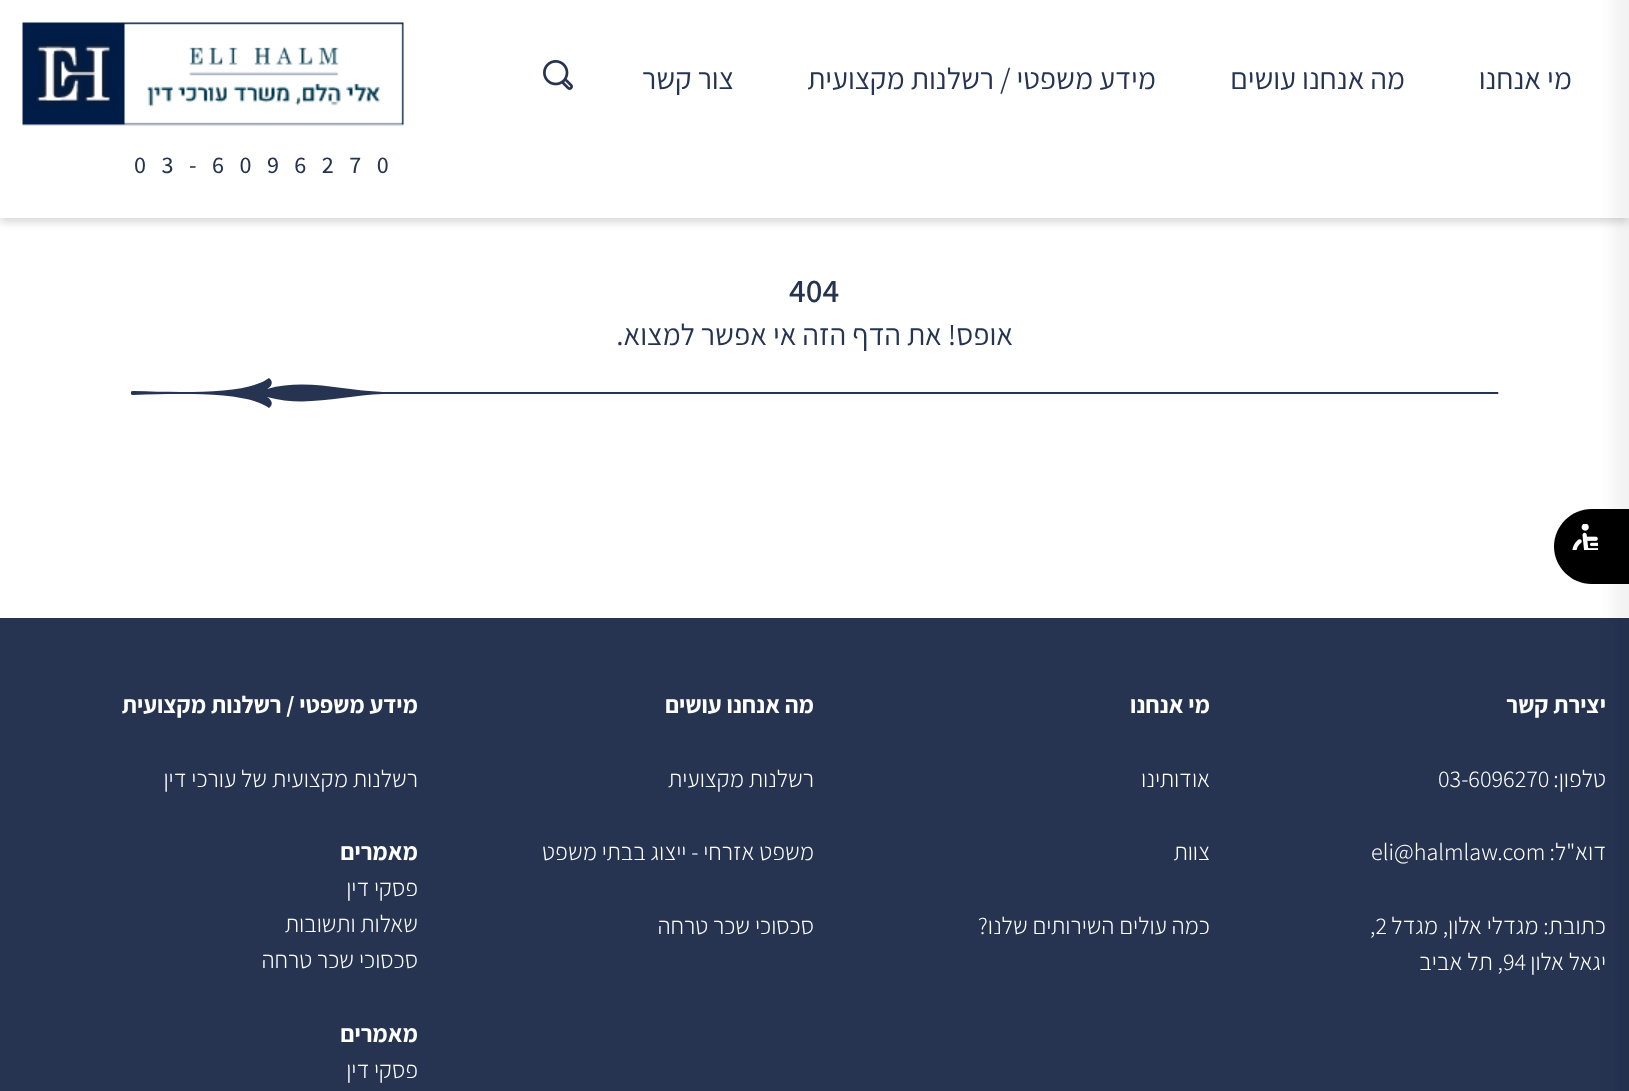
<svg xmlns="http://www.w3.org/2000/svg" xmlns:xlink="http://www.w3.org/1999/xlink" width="1629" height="1091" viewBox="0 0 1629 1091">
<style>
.cls-1{font:30px Assistant;direction:rtl;fill:#263452}
.cls-2{font:500 24px Assistant;letter-spacing:15.5px;fill:#263452}
.cls-3{font:600 33px Assistant;fill:#263452}
.cls-4{font:bold 24px Assistant;direction:rtl;fill:#ffffff}
.cls-5{font:300 24px Assistant;direction:rtl;fill:#ffffff}
.cls-6{font:300 24px Assistant;fill:#ffffff}
</style>
<defs>
<clipPath id="clip1"><rect x="131" y="378" width="1368" height="30"/></clipPath>
</defs>
<rect width="100%" height="100%" fill="#ffffff"/>
<rect fill="#000000" fill-opacity="0.16" filter="blur(4.5px)" x="0" y="5" width="1629" height="217"/>
<rect fill="#ffffff" x="0" y="0" width="1629" height="218"/>
<path fill="#000000" d="M1591.5 509H1629V584H1591.5C1571 584 1554 567 1554 546.5C1554 526 1571 509 1591.5 509Z"/>
<image xlink:href="image2.png" x="1572" y="524" width="26" height="26"/>
<rect fill="#263452" x="0" y="618" width="1629" height="473"/>
<rect fill="#000000" fill-opacity="0.05" filter="blur(7.5px)" x="1613" y="-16" width="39" height="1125"/>
<image xlink:href="image0.png" x="543" y="60" width="30" height="30"/>
<image xlink:href="image1.png" x="22" y="22" width="382" height="104"/>
<g clip-path="url(#clip1)">
<path fill="#263452" fill-rule="evenodd" d="M133 391C129 391 130 395 133 395C194 393 249 393 269 408C272 406 274 401 267 397C307 408 344 395 383 394H1497C1499 394 1499 392 1497 392H383C344 391 307 378 267 389C274 385 272 380 269 378C249 393 194 393 133 391Z"/>
</g>
<text class="cls-1" x="1572" y="89">מי אנחנו</text>
<text class="cls-1" x="1405" y="89">מה אנחנו עושים</text>
<text class="cls-1" x="1156" y="89">מידע משפטי / רשלנות מקצועית</text>
<text class="cls-1" x="734" y="89">צור קשר</text>
<text class="cls-2" x="134" y="173">03-6096270</text>
<text class="cls-3" x="789" y="302">404</text>
<text class="cls-1" x="1013" y="345">אופס! את הדף הזה אי אפשר למצוא.</text>
<text class="cls-4" x="1606" y="713">יצירת קשר</text>
<text class="cls-5" x="1606" y="787">טלפון:</text>
<text class="cls-6" x="1438" y="787">03-6096270</text>
<text class="cls-5" x="1606" y="860">דוא"ל:</text>
<text class="cls-6" x="1371" y="860">eli@halmlaw.com</text>
<text class="cls-5" x="1606" y="934">כתובת: מגדלי אלון, מגדל</text>
<text class="cls-6" x="1370" y="934">,2</text>
<text class="cls-5" x="1606" y="970">יגאל אלון</text>
<text class="cls-6" x="1503" y="970">94</text>
<text class="cls-5" x="1503" y="970">, תל אביב</text>
<text class="cls-4" x="1210" y="713">מי אנחנו</text>
<text class="cls-5" x="1210" y="787">אודותינו</text>
<text class="cls-5" x="1210" y="860">צוות</text>
<text class="cls-5" x="1210" y="934">כמה עולים השירותים שלנו?</text>
<text class="cls-4" x="814" y="713">מה אנחנו עושים</text>
<text class="cls-5" x="814" y="787">רשלנות מקצועית</text>
<text class="cls-5" x="814" y="860">משפט אזרחי - ייצוג בבתי משפט</text>
<text class="cls-5" x="814" y="934">סכסוכי שכר טרחה</text>
<text class="cls-4" x="418" y="713">מידע משפטי / רשלנות מקצועית</text>
<text class="cls-5" x="418" y="787">רשלנות מקצועית של עורכי דין</text>
<text class="cls-4" x="418" y="860">מאמרים</text>
<text class="cls-5"><tspan x="418" y="896">פסקי דין</tspan><tspan x="418" y="932">שאלות ותשובות</tspan><tspan x="418" y="968">סכסוכי שכר טרחה</tspan></text>
<text class="cls-4" x="418" y="1042">מאמרים</text>
<text class="cls-5" x="418" y="1078">פסקי דין</text>
</svg>
